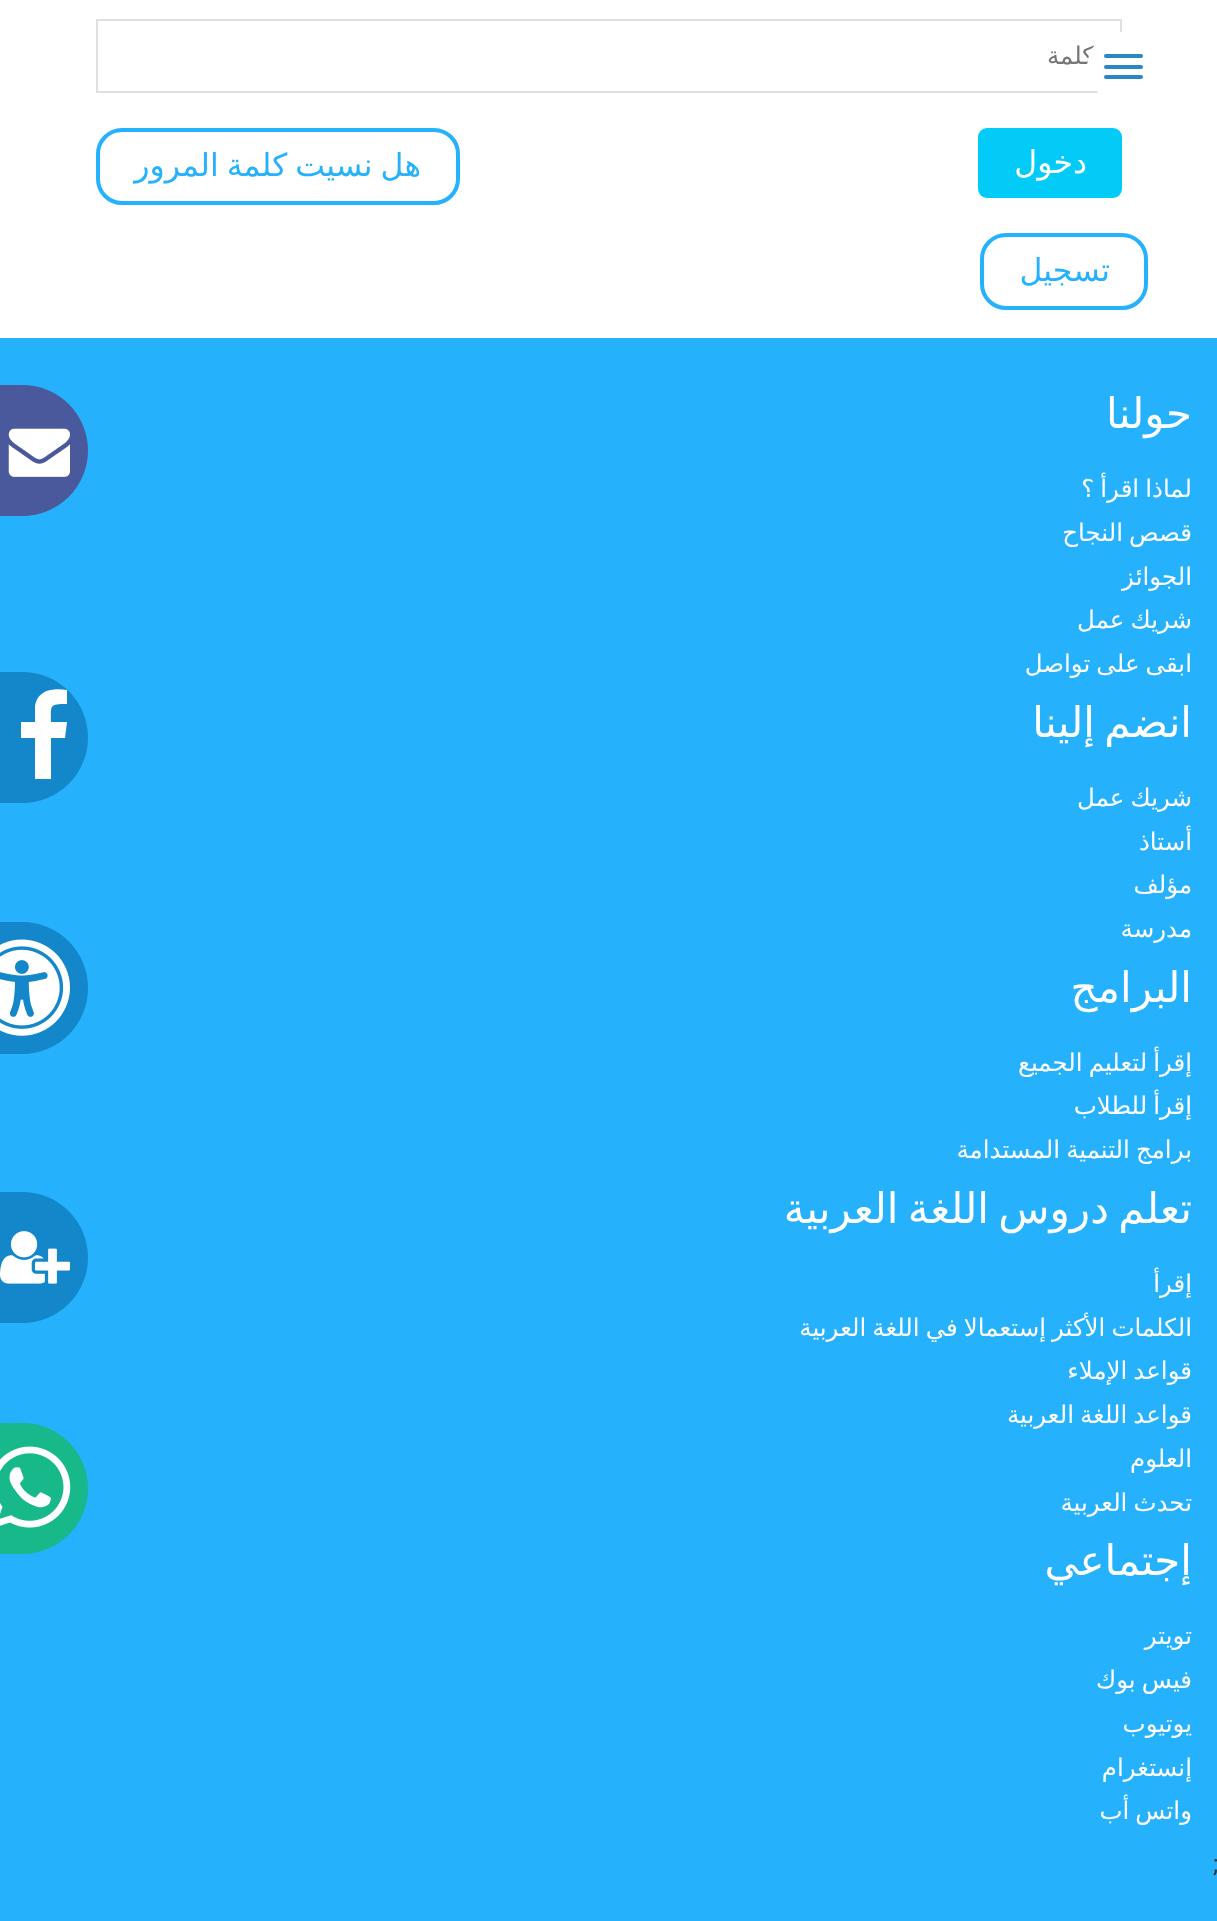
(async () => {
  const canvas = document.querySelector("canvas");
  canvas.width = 1217;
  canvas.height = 1921;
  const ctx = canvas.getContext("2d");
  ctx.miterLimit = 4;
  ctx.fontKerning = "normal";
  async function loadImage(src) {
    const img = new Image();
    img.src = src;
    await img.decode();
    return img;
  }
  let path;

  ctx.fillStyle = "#ffffff";
  ctx.fillRect(0, 0, 1217, 1921);
  ctx.strokeStyle = "#e0e0e0";
  ctx.lineWidth = 2;
  ctx.strokeRect(97, 20, 1024, 72);
  ctx.fillStyle = "#02cbf7";
  ctx.beginPath();
  ctx.roundRect(978, 128, 144, 70, 9);
  ctx.fill();
  ctx.beginPath();
  ctx.roundRect(98, 130, 360, 73, 24);
  ctx.strokeStyle = "#26b1fc";
  ctx.lineWidth = 4;
  ctx.stroke();
  ctx.beginPath();
  ctx.roundRect(982, 235, 164, 73, 24);
  ctx.stroke();
  ctx.fillStyle = "#26b1fc";
  ctx.fillRect(0, 338, 1217, 1583);
  ctx.fillStyle = "#4a599b";
  ctx.beginPath();
  ctx.roundRect(0, 385, 88, 131, [0, 65.5, 65.5, 0]);
  ctx.fill();
  ctx.drawImage(await loadImage("img/1.png"), 8, 428, 62, 49);
  ctx.fillStyle = "#1387ca";
  ctx.beginPath();
  ctx.roundRect(0, 672, 88, 131, [0, 65.5, 65.5, 0]);
  ctx.fill();
  ctx.fillStyle = "#ffffff";
  path = new Path2D("M67 690V704C49 704 51 705 51 722H67L65 738H51V779H35V738H21V722H35V706C38 689 54 688 67 690Z");
  ctx.fill(path);
  ctx.fillStyle = "#1387ca";
  ctx.beginPath();
  ctx.roundRect(0, 922, 88, 132, [0, 66, 66, 0]);
  ctx.fill();
  ctx.drawImage(await loadImage("img/2.png"), 0, 939, 70, 97);
  ctx.beginPath();
  ctx.roundRect(0, 1192, 88, 131, [0, 65.5, 65.5, 0]);
  ctx.fill();
  ctx.drawImage(await loadImage("img/3.png"), 0, 1231, 70, 53);
  ctx.fillStyle = "#17b88a";
  ctx.beginPath();
  ctx.roundRect(0, 1423, 88, 131, [0, 65.5, 65.5, 0]);
  ctx.fill();
  ctx.drawImage(await loadImage("img/4.png"), 0, 1446, 71, 82);
  ctx.direction = "rtl";
  ctx.font = "24.5px DejaVu Sans";
  ctx.fillStyle = "#757575";
  ctx.fillText("كلمة", 1094, 64);
  ctx.fillStyle = "#ffffff";
  ctx.beginPath();
  ctx.arc(1122, 67, 35, 0, Math.PI * 2);
  ctx.fill();
  ctx.fillStyle = "#2987c5";
  ctx.beginPath();
  ctx.roundRect(1104, 75, 39, 4, 2);
  ctx.fill();
  ctx.beginPath();
  ctx.roundRect(1104, 65, 39, 4, 2);
  ctx.fill();
  ctx.beginPath();
  ctx.roundRect(1104, 54, 39, 4, 2);
  ctx.fill();
  ctx.font = "31.5px DejaVu Sans";
  ctx.fillStyle = "#ffffff";
  ctx.fillText("دخول", 1087, 173);
  ctx.wordSpacing = "-2px";
  ctx.fillStyle = "#26b1fc";
  ctx.fillText("هل نسيت كلمة المرور", 421, 176);
  ctx.wordSpacing = "0px";
  ctx.fillText("تسجيل", 1110, 281);
  ctx.font = "42px DejaVu Sans";
  ctx.fillStyle = "#ffffff";
  ctx.fillText("حولنا", 1192, 428);
  ctx.wordSpacing = "-1.75px";
  ctx.font = "24.5px DejaVu Sans";
  ctx.fillText("لماذا اقرأ ؟", 1192, 497);
  ctx.fillText("قصص النجاح", 1192, 541);
  ctx.wordSpacing = "0px";
  ctx.fillText("الجوائز", 1192, 585);
  ctx.wordSpacing = "-1.75px";
  ctx.fillText("شريك عمل", 1192, 628);
  ctx.fillText("ابقى على تواصل", 1192, 672);
  ctx.wordSpacing = "-4px";
  ctx.font = "42px DejaVu Sans";
  ctx.fillText("انضم إلينا", 1192, 737);
  ctx.wordSpacing = "-1.75px";
  ctx.font = "24.5px DejaVu Sans";
  ctx.fillText("شريك عمل", 1192, 806);
  ctx.wordSpacing = "0px";
  for (const [text, x, y] of [
    ["أستاذ", 1192, 850],
    ["مؤلف", 1192, 893],
    ["مدرسة", 1192, 937],
  ]) {
    ctx.fillText(text, x, y);
  }
  ctx.font = "42px DejaVu Sans";
  ctx.fillText("البرامج", 1192, 1002);
  ctx.wordSpacing = "-1.75px";
  ctx.font = "24.5px DejaVu Sans";
  for (const [text, x, y] of [
    ["إقرأ لتعليم الجميع", 1192, 1071],
    ["إقرأ للطلاب", 1192, 1114],
    ["برامج التنمية المستدامة", 1192, 1158],
  ]) {
    ctx.fillText(text, x, y);
  }
  ctx.wordSpacing = "-4px";
  ctx.font = "42px DejaVu Sans";
  ctx.fillText("تعلم دروس اللغة العربية", 1192, 1223);
  ctx.wordSpacing = "0px";
  ctx.font = "24.5px DejaVu Sans";
  ctx.fillText("إقرأ", 1192, 1292);
  ctx.wordSpacing = "-1.75px";
  for (const [text, x, y] of [
    ["الكلمات الأكثر إستعمالا في اللغة العربية", 1192, 1336],
    ["قواعد الإملاء", 1192, 1379],
    ["قواعد اللغة العربية", 1192, 1423],
  ]) {
    ctx.fillText(text, x, y);
  }
  ctx.wordSpacing = "0px";
  ctx.fillText("العلوم", 1192, 1467);
  ctx.wordSpacing = "-1.75px";
  ctx.fillText("تحدث العربية", 1192, 1511);
  ctx.wordSpacing = "0px";
  ctx.font = "42px DejaVu Sans";
  ctx.fillText("إجتماعي", 1192, 1575);
  ctx.font = "24.5px DejaVu Sans";
  ctx.fillText("تويتر", 1192, 1644);
  ctx.wordSpacing = "-1.75px";
  ctx.fillText("فيس بوك", 1192, 1688);
  ctx.wordSpacing = "0px";
  ctx.fillText("يوتيوب", 1192, 1732);
  ctx.fillText("إنستغرام", 1192, 1776);
  ctx.wordSpacing = "-1.75px";
  ctx.fillText("واتس أب", 1192, 1819);
  ctx.wordSpacing = "0px";
  ctx.direction = "ltr";
  ctx.font = "24.5px Roboto";
  ctx.fillStyle = "#333333";
  ctx.fillText(";", 1213, 1872);
})();
